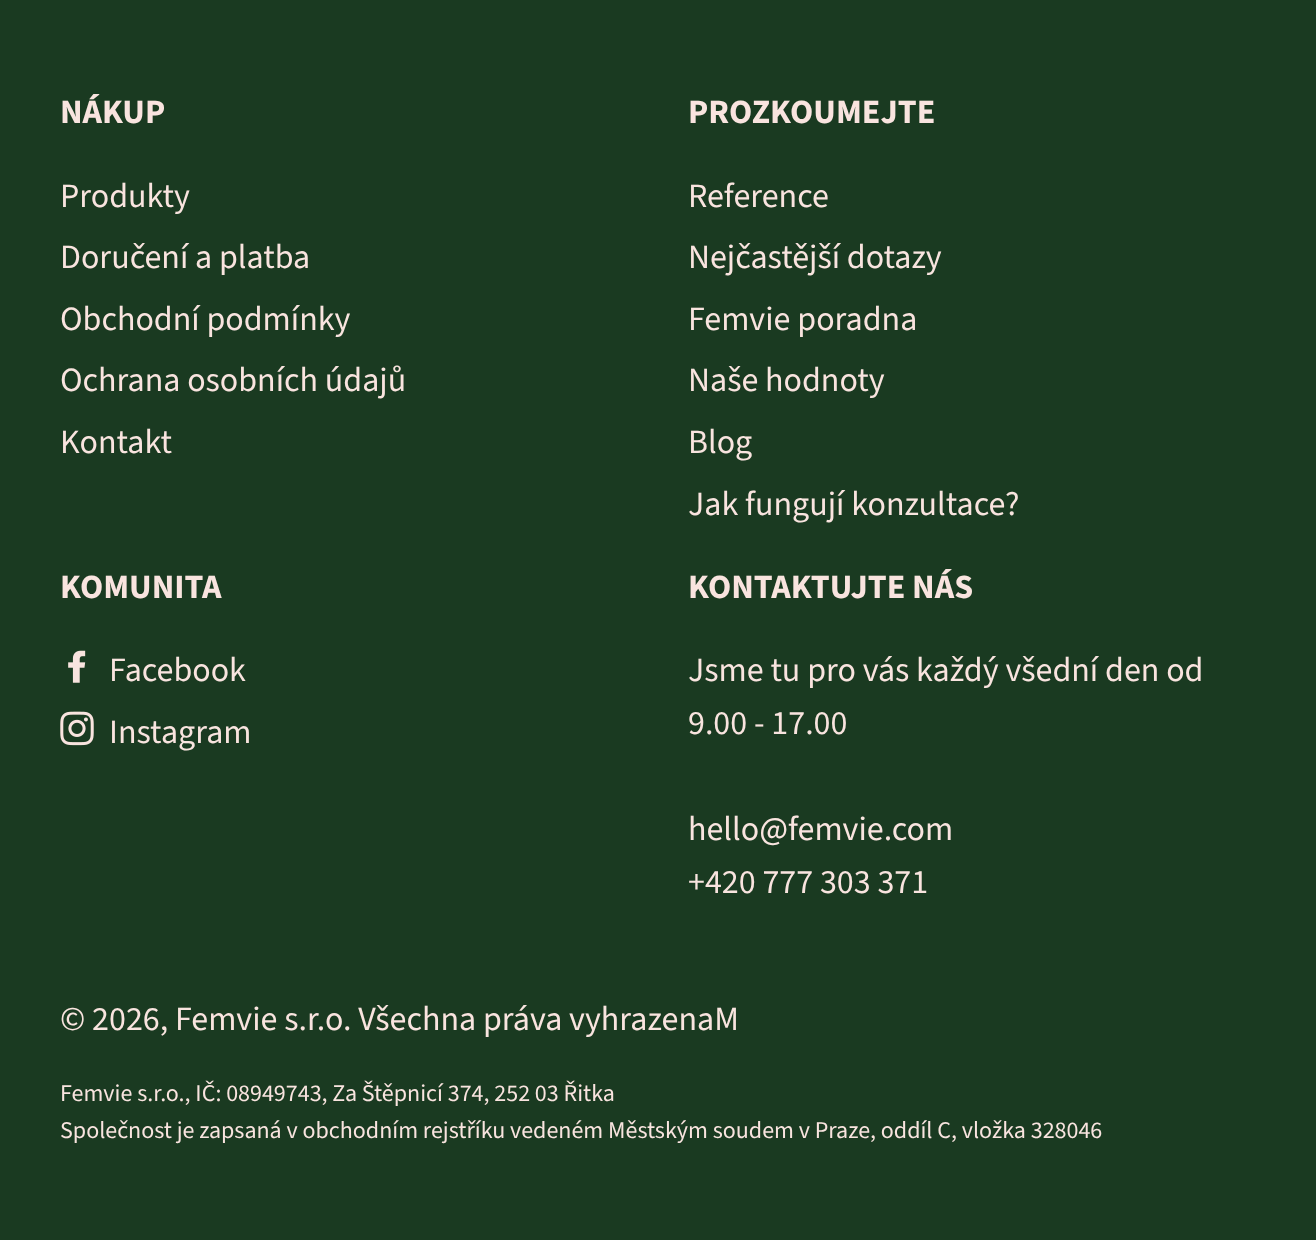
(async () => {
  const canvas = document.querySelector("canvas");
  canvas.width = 1316;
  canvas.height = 1240;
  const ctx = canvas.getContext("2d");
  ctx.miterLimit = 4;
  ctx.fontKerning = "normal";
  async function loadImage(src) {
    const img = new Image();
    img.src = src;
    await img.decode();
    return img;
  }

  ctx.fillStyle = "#1a3a21";
  ctx.fillRect(0, 0, 1316, 1240);
  ctx.drawImage(await loadImage("img/1.png"), 68, 650, 18, 33);
  ctx.drawImage(await loadImage("img/2.png"), 60, 711, 34, 35);
  ctx.font = "bold 34px Source Sans Pro";
  ctx.fillStyle = "#f9e4df";
  ctx.fillText("NÁKUP", 60, 123);
  ctx.font = "34px Source Sans Pro";
  for (const [text, x, y] of [
    ["Produkty", 60, 207],
    ["Doručení a platba", 60, 268],
    ["Obchodní podmínky", 60, 330],
    ["Ochrana osobních údajů", 60, 391],
    ["Kontakt", 60, 453],
  ]) {
    ctx.fillText(text, x, y);
  }
  ctx.font = "bold 34px Source Sans Pro";
  ctx.fillText("PROZKOUMEJTE", 688, 123);
  ctx.font = "34px Source Sans Pro";
  for (const [text, x, y] of [
    ["Reference", 688, 207],
    ["Nejčastější dotazy", 688, 268],
    ["Femvie poradna", 688, 330],
    ["Naše hodnoty", 688, 391],
    ["Blog", 688, 453],
    ["Jak fungují konzultace?", 688, 515],
  ]) {
    ctx.fillText(text, x, y);
  }
  ctx.font = "bold 34px Source Sans Pro";
  ctx.fillText("KOMUNITA", 60, 598);
  ctx.font = "34px Source Sans Pro";
  ctx.fillText("Facebook", 109, 681);
  ctx.fillText("Instagram", 109, 743);
  ctx.font = "bold 34px Source Sans Pro";
  ctx.fillText("KONTAKTUJTE NÁS", 688, 598);
  ctx.font = "34px Source Sans Pro";
  for (const [text, x, y] of [
    ["Jsme tu pro vás každý všední den od", 688, 681],
    ["9.00 - 17.00", 688, 734],
    ["hello@femvie.com", 688, 840],
    ["+420 777 303 371", 688, 893],
    ["© 2026, Femvie s.r.o. Všechna práva vyhrazenaM", 60, 1030],
  ]) {
    ctx.fillText(text, x, y);
  }
  ctx.font = "24px Source Sans Pro";
  ctx.fillText("Femvie s.r.o., IČ: 08949743, Za Štěpnicí 374, 252 03 Řitka", 60, 1101);
  ctx.fillText("Společnost je zapsaná v obchodním rejstříku vedeném Městským soudem v Praze, oddíl C, vložka 328046", 60, 1138);
})();
